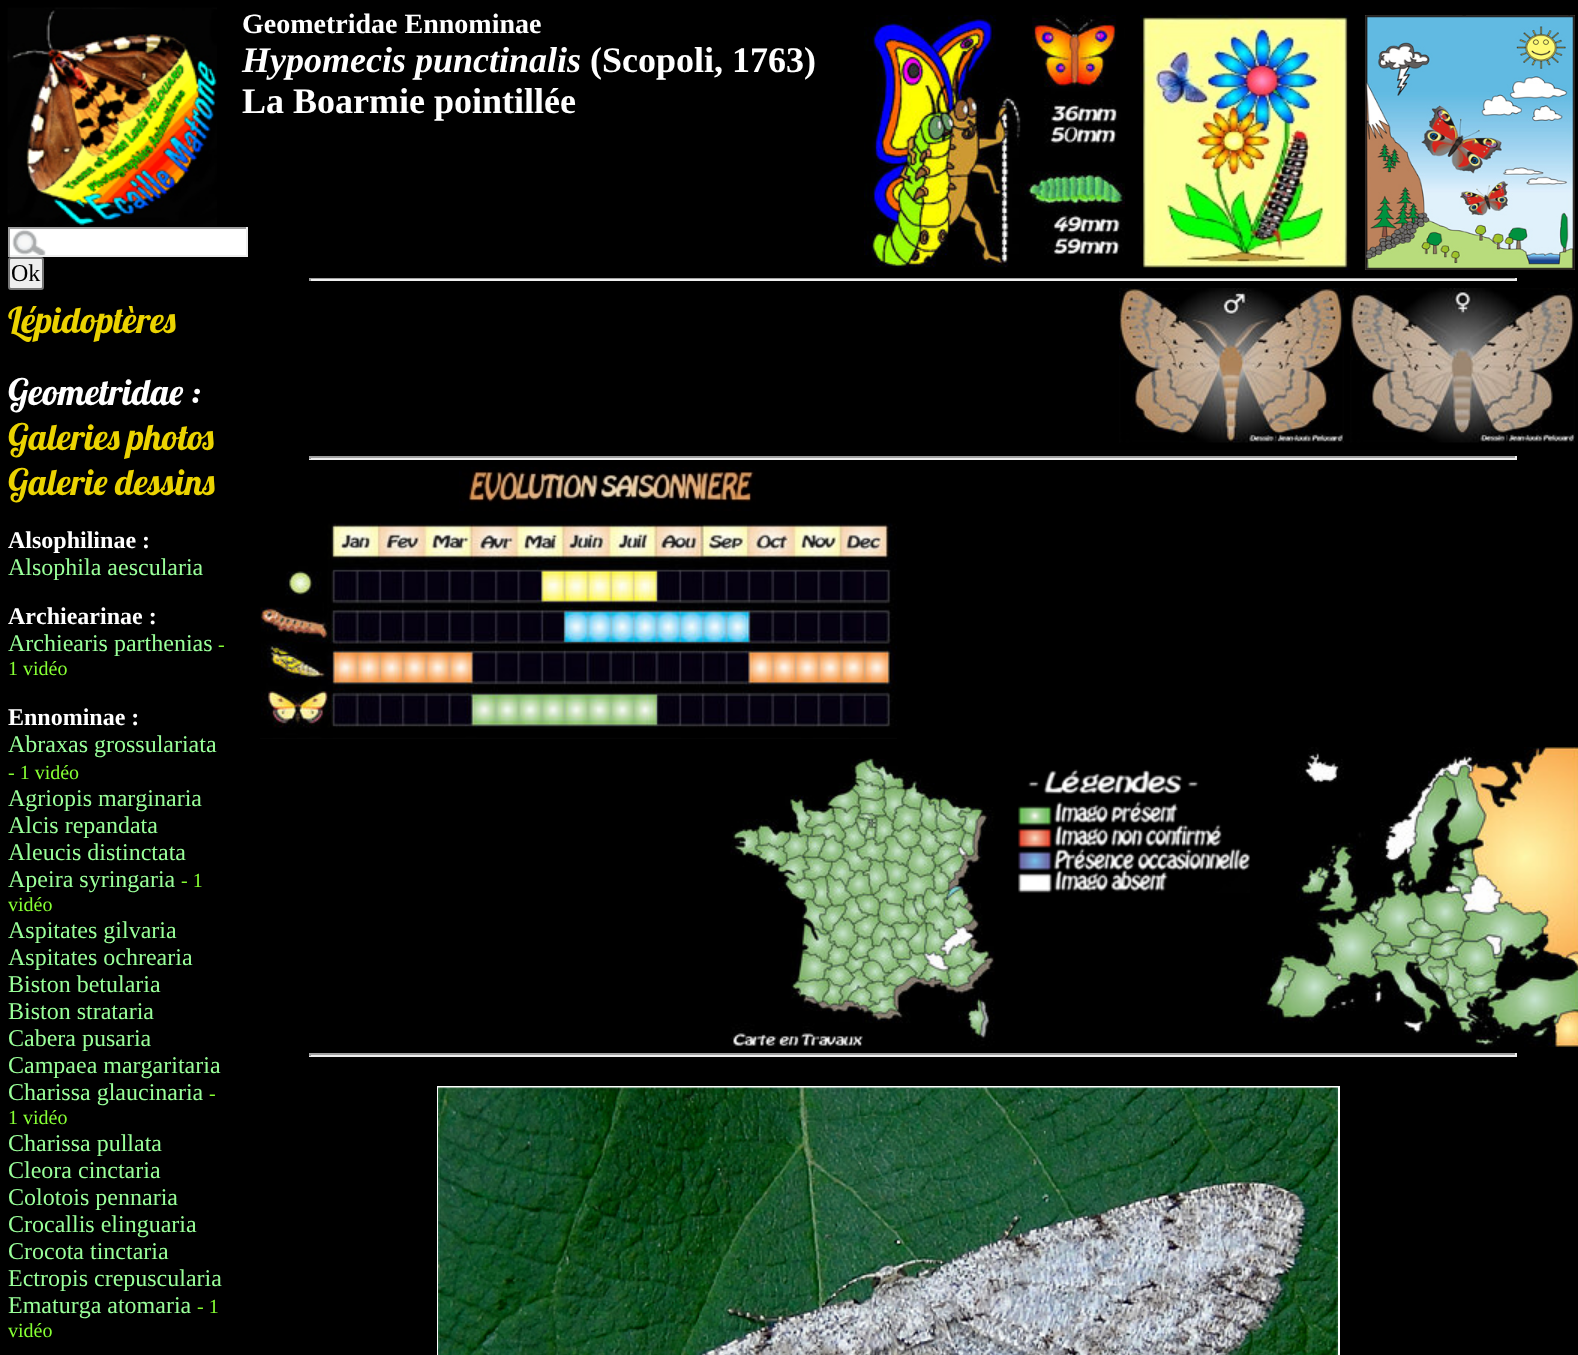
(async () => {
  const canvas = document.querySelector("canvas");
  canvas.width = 1578;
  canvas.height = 1355;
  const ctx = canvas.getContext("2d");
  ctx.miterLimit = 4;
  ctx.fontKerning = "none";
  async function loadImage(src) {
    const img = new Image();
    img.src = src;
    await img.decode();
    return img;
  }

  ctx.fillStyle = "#000000";
  ctx.fillRect(0, 0, 1578, 1355);
  ctx.drawImage(await loadImage("img/1.png"), 864, 15, 261, 253);
  ctx.drawImage(await loadImage("img/2.png"), 1140, 15, 210, 255);
  ctx.drawImage(await loadImage("img/3.png"), 1365, 15, 210, 255);
  for (const [x, y, w, h, color] of [
    [309, 278, 1208, 1, "#9f9f9f"],
    [1515, 278, 2, 3, "#eeeeee"],
    [309, 279, 1208, 2, "#eeeeee"],
    [309, 278, 2, 3, "#9f9f9f"],
  ]) {
    ctx.fillStyle = color;
    ctx.fillRect(x, y, w, h);
  }
  ctx.drawImage(await loadImage("img/4.png"), 1119, 288, 225, 155);
  ctx.drawImage(await loadImage("img/5.png"), 1350, 288, 225, 155);
  for (const [x, y, w, h, color] of [
    [309, 456, 1208, 2, "#9f9f9f"],
    [1515, 456, 2, 3, "#eeeeee"],
    [309, 458, 1208, 2, "#eeeeee"],
    [309, 456, 2, 3, "#9f9f9f"],
  ]) {
    ctx.fillStyle = color;
    ctx.fillRect(x, y, w, h);
  }
  ctx.drawImage(await loadImage("img/6.png"), 459, 467, 297, 44);
  ctx.drawImage(await loadImage("img/7.png"), 260, 523, 637, 216);
  ctx.drawImage(await loadImage("img/8.png"), 730, 758, 265, 289);
  ctx.drawImage(await loadImage("img/9.png"), 1018, 769, 232, 124);
  ctx.drawImage(await loadImage("img/10.png"), 1260, 747, 318, 300);
  for (const [x, y, w, h, color] of [
    [309, 1053, 1208, 2, "#9f9f9f"],
    [1515, 1053, 2, 3, "#eeeeee"],
    [309, 1055, 1208, 2, "#eeeeee"],
    [309, 1053, 2, 3, "#9f9f9f"],
  ]) {
    ctx.fillStyle = color;
    ctx.fillRect(x, y, w, h);
  }
  ctx.strokeStyle = "#ffffff";
  ctx.lineWidth = 2;
  ctx.strokeRect(438, 1087, 901, 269);
  ctx.drawImage(await loadImage("img/11.png"), 438, 1087, 900, 268);
  ctx.drawImage(await loadImage("img/12.png"), 7, 7, 210, 219);
  ctx.fillStyle = "#ffffff";
  ctx.fillRect(10, 229, 236, 26);
  ctx.drawImage(await loadImage("img/13.png"), 12, 229, 34, 26);
  for (const [x, y, w, h, color] of [
    [8, 227, 240, 2, "#9f9f9f"],
    [246, 227, 2, 30, "#eeeeee"],
    [8, 255, 240, 2, "#eeeeee"],
    [8, 227, 2, 30, "#9f9f9f"],
  ]) {
    ctx.fillStyle = color;
    ctx.fillRect(x, y, w, h);
  }
  ctx.fillStyle = "#efefef";
  ctx.beginPath();
  ctx.roundRect(9, 258, 34, 31, 2);
  ctx.fill();
  ctx.strokeStyle = "#767676";
  ctx.stroke();
  ctx.font = "bold 28px Liberation Serif";
  ctx.fillStyle = "#ffffff";
  ctx.fillText("Geometridae Ennominae", 242, 33);
  ctx.font = "italic bold 36px Liberation Serif";
  ctx.fillText("Hypomecis punctinalis", 242, 72);
  ctx.font = "bold 36px Liberation Serif";
  ctx.fillText("(Scopoli, 1763)", 590, 72);
  ctx.fillText("La Boarmie pointillée", 242, 113);
  ctx.font = "24px Liberation Serif";
  ctx.fillStyle = "#000000";
  ctx.fillText("Ok", 11, 281);
  ctx.font = "36px Lobster";
  ctx.fillStyle = "#ebd301";
  ctx.fillText("Lépidoptères", 8, 333);
  ctx.fillStyle = "#ffffff";
  ctx.fillText("Geometridae :", 8, 405);
  ctx.fillStyle = "#ebd301";
  ctx.fillText("Galeries photos", 8, 450);
  ctx.fillText("Galerie dessins", 8, 495);
  ctx.font = "bold 24px Liberation Serif";
  ctx.fillStyle = "#ffffff";
  ctx.fillText("Alsophilinae :", 8, 548);
  ctx.font = "24px Liberation Serif";
  ctx.fillStyle = "#99ff99";
  ctx.fillText("Alsophila aescularia", 8, 575);
  ctx.font = "bold 24px Liberation Serif";
  ctx.fillStyle = "#ffffff";
  ctx.fillText("Archiearinae :", 8, 624);
  ctx.font = "24px Liberation Serif";
  ctx.fillStyle = "#99ff99";
  ctx.fillText("Archiearis parthenias", 8, 651);
  ctx.font = "20px Liberation Serif";
  ctx.fillStyle = "#86ff33";
  ctx.fillText("-", 218, 651);
  ctx.fillText("1 vidéo", 8, 675);
  ctx.font = "bold 24px Liberation Serif";
  ctx.fillStyle = "#ffffff";
  ctx.fillText("Ennominae :", 8, 725);
  ctx.font = "24px Liberation Serif";
  ctx.fillStyle = "#99ff99";
  ctx.fillText("Abraxas grossulariata", 8, 752);
  ctx.font = "20px Liberation Serif";
  ctx.fillStyle = "#86ff33";
  ctx.fillText("- 1 vidéo", 8, 779);
  ctx.font = "24px Liberation Serif";
  ctx.fillStyle = "#99ff99";
  for (const [text, x, y] of [
    ["Agriopis marginaria", 8, 806],
    ["Alcis repandata", 8, 833],
    ["Aleucis distinctata", 8, 860],
    ["Apeira syringaria", 8, 887],
  ]) {
    ctx.fillText(text, x, y);
  }
  ctx.font = "20px Liberation Serif";
  ctx.fillStyle = "#86ff33";
  ctx.fillText("- 1", 181, 887);
  ctx.fillText("vidéo", 8, 911);
  ctx.font = "24px Liberation Serif";
  ctx.fillStyle = "#99ff99";
  for (const [text, x, y] of [
    ["Aspitates gilvaria", 8, 938],
    ["Aspitates ochrearia", 8, 965],
    ["Biston betularia", 8, 992],
    ["Biston strataria", 8, 1019],
    ["Cabera pusaria", 8, 1046],
    ["Campaea margaritaria", 8, 1073],
    ["Charissa glaucinaria", 8, 1100],
  ]) {
    ctx.fillText(text, x, y);
  }
  ctx.font = "20px Liberation Serif";
  ctx.fillStyle = "#86ff33";
  ctx.fillText("-", 209, 1100);
  ctx.fillText("1 vidéo", 8, 1124);
  ctx.font = "24px Liberation Serif";
  ctx.fillStyle = "#99ff99";
  for (const [text, x, y] of [
    ["Charissa pullata", 8, 1151],
    ["Cleora cinctaria", 8, 1178],
    ["Colotois pennaria", 8, 1205],
    ["Crocallis elinguaria", 8, 1232],
    ["Crocota tinctaria", 8, 1259],
    ["Ectropis crepuscularia", 8, 1286],
    ["Ematurga atomaria", 8, 1313],
  ]) {
    ctx.fillText(text, x, y);
  }
  ctx.font = "20px Liberation Serif";
  ctx.fillStyle = "#86ff33";
  ctx.fillText("- 1", 197, 1313);
  ctx.fillText("vidéo", 8, 1337);
})();
